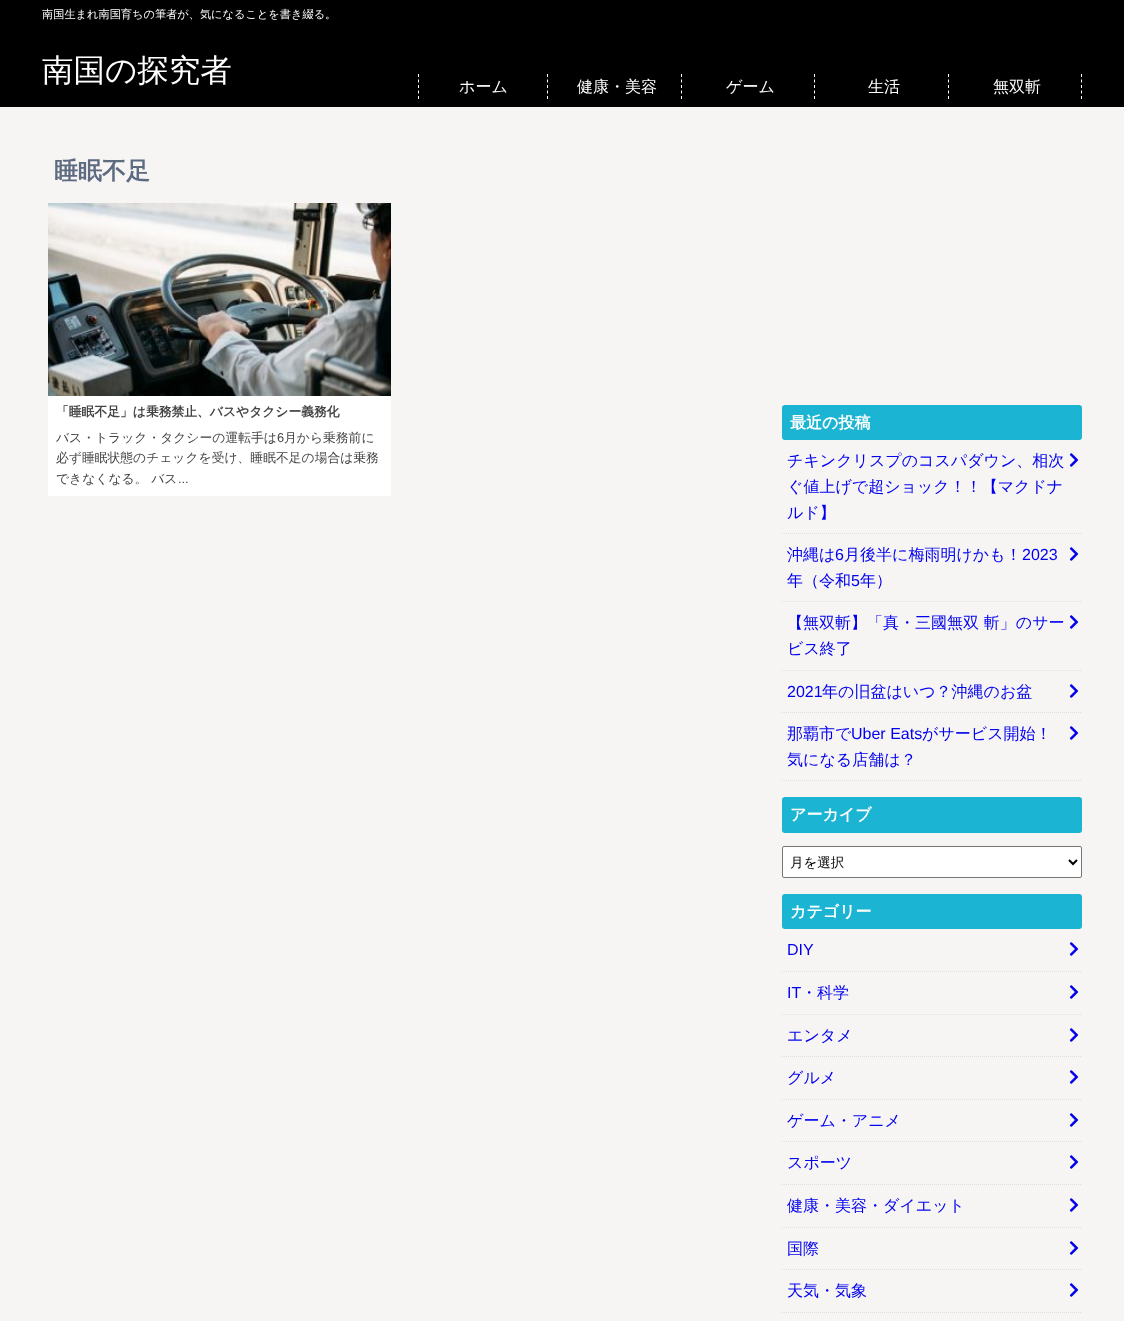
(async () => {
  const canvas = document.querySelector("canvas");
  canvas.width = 1124;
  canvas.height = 1321;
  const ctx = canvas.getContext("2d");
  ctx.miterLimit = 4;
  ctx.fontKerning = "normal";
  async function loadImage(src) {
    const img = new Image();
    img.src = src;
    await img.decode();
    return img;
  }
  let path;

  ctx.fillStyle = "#f7f4f4";
  ctx.fillRect(0, 0, 1124, 1321);
  ctx.fillStyle = "#000000";
  ctx.fillRect(0, 0, 1124, 107);
  path = new Path2D("M547.5 74V99");
  ctx.strokeStyle = "#ffffff";
  ctx.setLineDash([3, 2.5]);
  ctx.stroke(path);
  path = new Path2D("M418.5 74V99");
  ctx.stroke(path);
  path = new Path2D("M681.5 74V99");
  ctx.stroke(path);
  path = new Path2D("M814.5 74V99");
  ctx.stroke(path);
  path = new Path2D("M948.5 74V99");
  ctx.stroke(path);
  path = new Path2D("M1081.5 74V99");
  ctx.stroke(path);
  ctx.fillStyle = "#ffffff";
  ctx.fillRect(48, 396, 343, 100);
  ctx.drawImage(await loadImage("img/1.png"), 48, 203, 343, 193);
  ctx.fillStyle = "#1bb4d3";
  ctx.beginPath();
  ctx.roundRect(782, 405, 300, 35, 3);
  ctx.fill();
  path = new Path2D("M782 533.5H1082");
  ctx.strokeStyle = "#dfdcdc";
  ctx.setLineDash([1, 1]);
  ctx.stroke(path);
  ctx.drawImage(await loadImage("img/2.png"), 1069, 453, 10, 14);
  path = new Path2D("M782 601.5H1082");
  ctx.stroke(path);
  ctx.drawImage(await loadImage("img/2.png"), 1069, 547, 10, 14);
  path = new Path2D("M782 670.5H1082");
  ctx.stroke(path);
  ctx.drawImage(await loadImage("img/2.png"), 1069, 615, 10, 14);
  path = new Path2D("M782 712.5H1082");
  ctx.stroke(path);
  ctx.drawImage(await loadImage("img/2.png"), 1069, 684, 10, 14);
  path = new Path2D("M782 780.5H1082");
  ctx.stroke(path);
  ctx.drawImage(await loadImage("img/2.png"), 1069, 726, 10, 14);
  ctx.beginPath();
  ctx.roundRect(782, 797, 300, 36, 3);
  ctx.fill();
  ctx.fillStyle = "#ffffff";
  ctx.beginPath();
  ctx.roundRect(782.5, 846.5, 299, 31, 1.5);
  ctx.fill();
  ctx.strokeStyle = "#767676";
  ctx.setLineDash([]);
  ctx.stroke();
  path = new Path2D("M1069 860L1073 864L1077 860");
  ctx.strokeStyle = "#000000";
  ctx.lineWidth = 2;
  ctx.stroke(path);
  ctx.fillStyle = "#1bb4d3";
  ctx.beginPath();
  ctx.roundRect(782, 894, 300, 35, 3);
  ctx.fill();
  path = new Path2D("M782 971.5H1082");
  ctx.strokeStyle = "#dfdcdc";
  ctx.lineWidth = 1;
  ctx.setLineDash([1, 1]);
  ctx.stroke(path);
  ctx.drawImage(await loadImage("img/2.png"), 1069, 942, 10, 14);
  path = new Path2D("M782 1014.5H1082");
  ctx.stroke(path);
  ctx.drawImage(await loadImage("img/2.png"), 1069, 985, 10, 14);
  path = new Path2D("M782 1056.5H1082");
  ctx.stroke(path);
  ctx.drawImage(await loadImage("img/2.png"), 1069, 1028, 10, 14);
  path = new Path2D("M782 1099.5H1082");
  ctx.stroke(path);
  ctx.drawImage(await loadImage("img/2.png"), 1069, 1070, 10, 14);
  path = new Path2D("M782 1141.5H1082");
  ctx.stroke(path);
  ctx.drawImage(await loadImage("img/2.png"), 1069, 1113, 10, 14);
  path = new Path2D("M782 1184.5H1082");
  ctx.stroke(path);
  ctx.drawImage(await loadImage("img/2.png"), 1069, 1155, 10, 14);
  path = new Path2D("M782 1227.5H1082");
  ctx.stroke(path);
  ctx.drawImage(await loadImage("img/2.png"), 1069, 1198, 10, 14);
  path = new Path2D("M782 1269.5H1082");
  ctx.stroke(path);
  ctx.drawImage(await loadImage("img/2.png"), 1069, 1241, 10, 14);
  path = new Path2D("M782 1312.5H1082");
  ctx.stroke(path);
  ctx.drawImage(await loadImage("img/2.png"), 1069, 1283, 10, 14);
  ctx.font = "500 11.2px WenQuanYi Zen Hei";
  ctx.fillStyle = "#ffffff";
  ctx.fillText("南国生まれ南国育ちの筆者が、気になることを書き綴る。", 42, 18);
  ctx.font = "500 31.5px WenQuanYi Zen Hei";
  ctx.fillText("南国の探究者", 42, 81);
  ctx.font = "500 16px WenQuanYi Zen Hei";
  for (const [text, x, y] of [
    ["ホーム", 459, 92],
    ["健康・美容", 577, 92],
    ["ゲーム", 726, 92],
    ["生活", 868, 92],
    ["無双斬", 993, 92],
  ]) {
    ctx.fillText(text, x, y);
  }
  ctx.font = "bold 24px WenQuanYi Zen Hei";
  ctx.fillStyle = "#5c6b80";
  ctx.fillText("睡眠不足", 54, 179);
  ctx.font = "bold 12.8px WenQuanYi Zen Hei";
  ctx.fillStyle = "#444444";
  ctx.fillText("「睡眠不足」は乗務禁止、バスやタクシー義務化", 56, 416);
  ctx.font = "500 12.8px WenQuanYi Zen Hei";
  ctx.fillText("バス・トラック・タクシーの運転手は", 56, 442);
  ctx.font = "12.8px Liberation Sans";
  ctx.fillText("6", 277, 442);
  ctx.font = "500 12.8px WenQuanYi Zen Hei";
  for (const [text, x, y] of [
    ["月から乗務前に", 284, 442],
    ["必ず睡眠状態のチェックを受け、睡眠不足の場合は乗務", 56, 462],
    ["できなくなる。 バス", 56, 483],
  ]) {
    ctx.fillText(text, x, y);
  }
  ctx.font = "12.8px Liberation Sans";
  ctx.fillText("...", 178, 483);
  ctx.font = "bold 16px WenQuanYi Zen Hei";
  ctx.fillStyle = "#ffffff";
  ctx.fillText("最近の投稿", 790, 428);
  ctx.font = "500 16px WenQuanYi Zen Hei";
  ctx.fillStyle = "#0000ee";
  for (const [text, x, y] of [
    ["チキンクリスプのコスパダウン、相次", 787, 466],
    ["ぐ値上げで超ショック！！【マクドナ", 787, 492],
    ["ルド】", 787, 518],
    ["沖縄は", 787, 560],
  ]) {
    ctx.fillText(text, x, y);
  }
  ctx.font = "16px Liberation Sans";
  ctx.fillText("6", 835, 560);
  ctx.font = "500 16px WenQuanYi Zen Hei";
  ctx.fillText("月後半に梅雨明けかも！", 844, 560);
  ctx.font = "16px Liberation Sans";
  ctx.fillText("2023", 1022, 560);
  ctx.font = "500 16px WenQuanYi Zen Hei";
  ctx.fillText("年（令和", 787, 586);
  ctx.font = "16px Liberation Sans";
  ctx.fillText("5", 851, 586);
  ctx.font = "500 16px WenQuanYi Zen Hei";
  for (const [text, x, y] of [
    ["年）", 860, 586],
    ["【無双斬】「真・三國無双 斬」のサー", 787, 628],
    ["ビス終了", 787, 654],
  ]) {
    ctx.fillText(text, x, y);
  }
  ctx.font = "16px Liberation Sans";
  ctx.fillText("2021", 787, 697);
  ctx.font = "500 16px WenQuanYi Zen Hei";
  ctx.fillText("年の旧盆はいつ？沖縄のお盆", 822, 697);
  ctx.fillText("那覇市で", 787, 739);
  ctx.font = "16px Liberation Sans";
  ctx.fillText("Uber Eats", 851, 739);
  ctx.font = "500 16px WenQuanYi Zen Hei";
  ctx.fillText("がサービス開始！", 922, 739);
  ctx.fillText("気になる店舗は？", 787, 765);
  ctx.font = "bold 16px WenQuanYi Zen Hei";
  ctx.fillStyle = "#ffffff";
  ctx.fillText("アーカイブ", 790, 820);
  ctx.font = "500 13.5px WenQuanYi Zen Hei";
  ctx.fillStyle = "#000000";
  ctx.fillText("月を選択", 790, 867);
  ctx.font = "bold 16px WenQuanYi Zen Hei";
  ctx.fillStyle = "#ffffff";
  ctx.fillText("カテゴリー", 790, 917);
  ctx.font = "16px Liberation Sans";
  ctx.fillStyle = "#0000ee";
  ctx.fillText("DIY", 787, 955);
  ctx.fillText("IT", 787, 998);
  ctx.font = "500 16px WenQuanYi Zen Hei";
  for (const [text, x, y] of [
    ["・科学", 801, 998],
    ["エンタメ", 787, 1041],
    ["グルメ", 787, 1083],
    ["ゲーム・アニメ", 787, 1126],
    ["スポーツ", 787, 1168],
    ["健康・美容・ダイエット", 787, 1211],
    ["国際", 787, 1254],
    ["天気・気象", 787, 1296],
  ]) {
    ctx.fillText(text, x, y);
  }
})();
